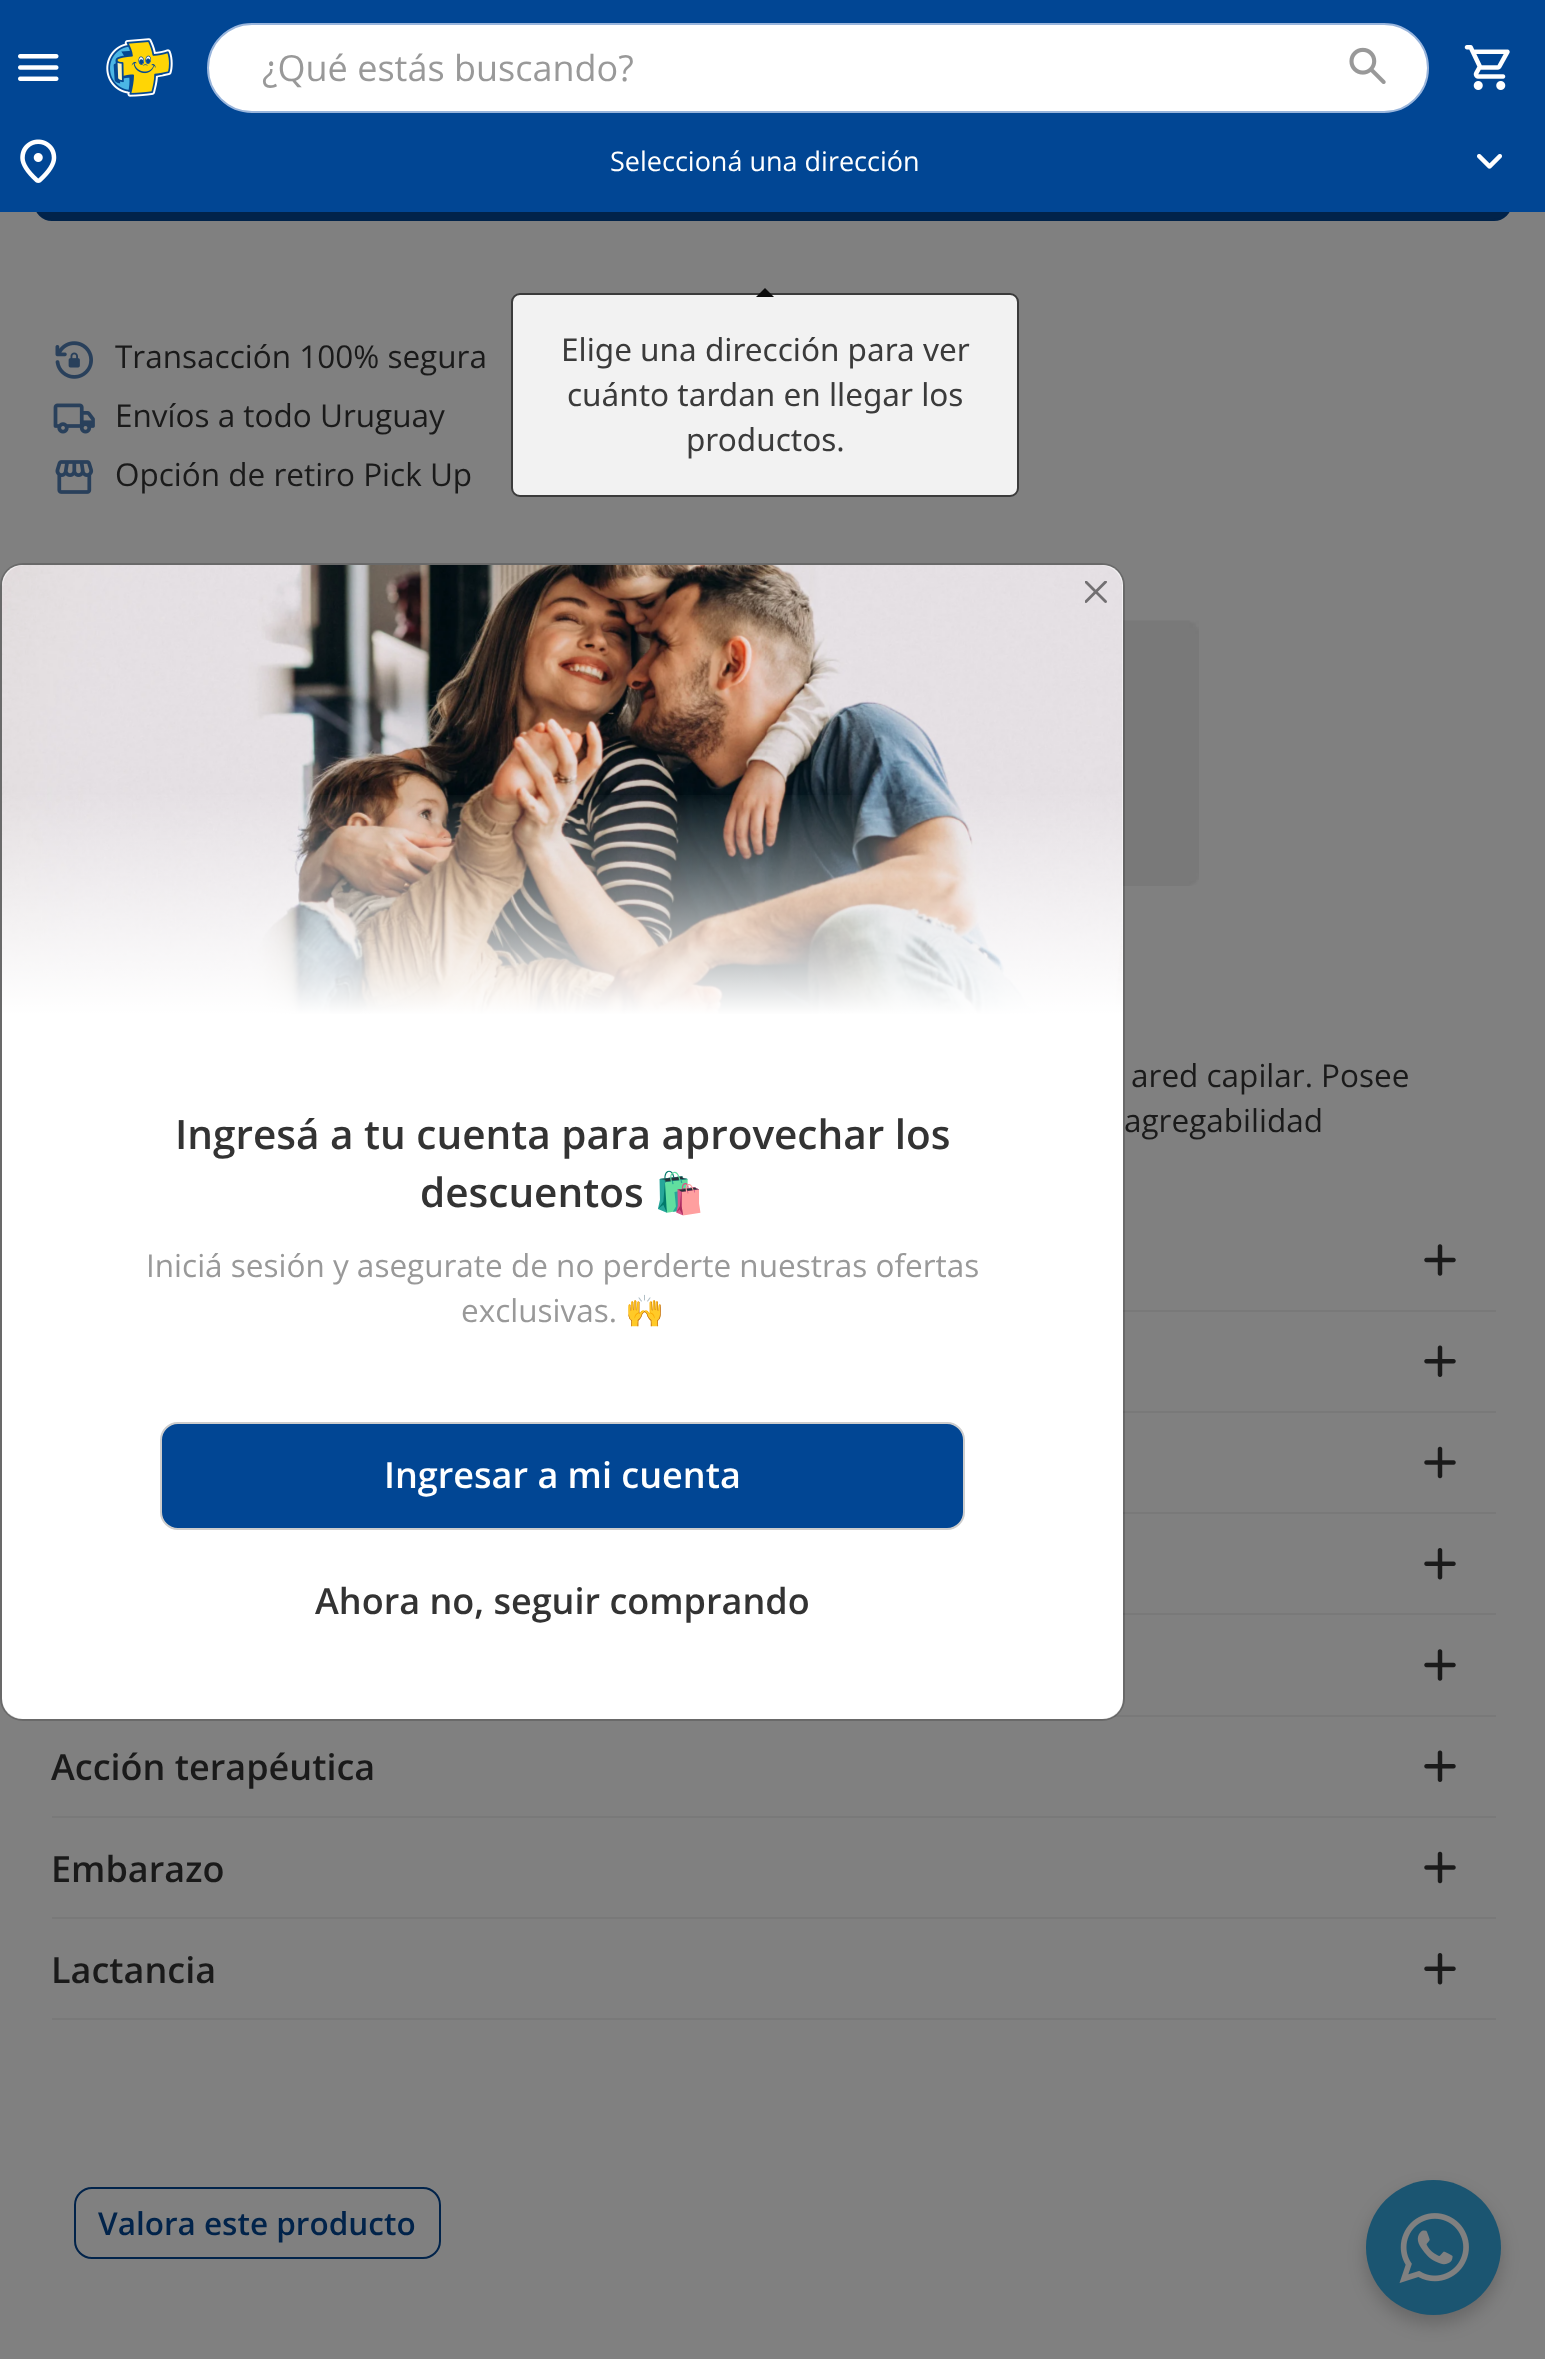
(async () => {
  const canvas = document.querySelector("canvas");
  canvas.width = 1545;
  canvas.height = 2359;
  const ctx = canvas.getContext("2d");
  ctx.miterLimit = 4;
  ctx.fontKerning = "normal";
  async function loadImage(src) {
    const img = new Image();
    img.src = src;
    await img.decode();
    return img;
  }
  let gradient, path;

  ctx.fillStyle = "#808080";
  ctx.fillRect(0, 0, 1545, 2359);
  ctx.fillStyle = "#01234a";
  ctx.beginPath();
  ctx.roundRect(35, 114, 1476, 106, 17);
  ctx.fill();
  ctx.strokeStyle = "#01234a";
  ctx.lineWidth = 2;
  ctx.stroke();
  ctx.fillStyle = "#014694";
  ctx.fillRect(0, 0, 1545, 212);
  ctx.drawImage(await loadImage("img/1.png"), 18, 54, 41, 27);
  ctx.drawImage(await loadImage("img/2.png"), 106, 38, 67, 59);
  ctx.fillStyle = "#ffffff";
  ctx.beginPath();
  ctx.roundRect(208, 24, 1220, 88, 44);
  ctx.fill();
  ctx.strokeStyle = "#99b5dc";
  ctx.stroke();
  ctx.drawImage(await loadImage("img/3.png"), 1349, 47, 37, 37);
  ctx.drawImage(await loadImage("img/4.png"), 1464, 45, 46, 45);
  ctx.drawImage(await loadImage("img/5.png"), 20, 139, 37, 44);
  ctx.drawImage(await loadImage("img/6.png"), 1477, 154, 25, 15);
  ctx.drawImage(await loadImage("img/7.png"), 55, 341, 38, 38);
  ctx.drawImage(await loadImage("img/8.png"), 53, 403, 42, 31);
  ctx.drawImage(await loadImage("img/9.png"), 55, 460, 39, 34);
  ctx.drawImage(await loadImage("img/10.png"), 1123, 620, 76, 266);
  ctx.fillStyle = "#797979";
  ctx.fillRect(1123, 1310, 373, 2);
  ctx.drawImage(await loadImage("img/11.png"), 1424, 1244, 32, 32);
  ctx.fillRect(1123, 1411, 373, 2);
  ctx.drawImage(await loadImage("img/12.png"), 1424, 1345, 32, 32);
  ctx.fillRect(1123, 1512, 373, 2);
  ctx.drawImage(await loadImage("img/13.png"), 1424, 1446, 32, 33);
  ctx.fillRect(1123, 1613, 373, 2);
  ctx.drawImage(await loadImage("img/14.png"), 1424, 1548, 32, 32);
  ctx.fillRect(1111, 1715, 385, 2);
  ctx.drawImage(await loadImage("img/11.png"), 1424, 1649, 32, 32);
  ctx.fillRect(52, 1816, 1444, 2);
  ctx.drawImage(await loadImage("img/12.png"), 1424, 1750, 32, 32);
  ctx.fillRect(52, 1917, 1444, 2);
  ctx.drawImage(await loadImage("img/13.png"), 1424, 1851, 32, 33);
  ctx.fillRect(52, 2018, 1444, 2);
  ctx.drawImage(await loadImage("img/14.png"), 1424, 1953, 32, 32);
  ctx.beginPath();
  ctx.roundRect(75, 2188, 365, 70, 17);
  ctx.strokeStyle = "#01234a";
  ctx.stroke();
  ctx.fillStyle = "#ffffff";
  ctx.beginPath();
  ctx.roundRect(2, 565, 1121, 1154, 20);
  ctx.fill();
  ctx.beginPath();
  ctx.roundRect(1, 564, 1123, 1156, 22);
  ctx.strokeStyle = "rgba(0, 0, 0, 0.18)";
  ctx.stroke();
  ctx.drawImage(await loadImage("img/15.png"), 2, 565, 1121, 449);
  ctx.drawImage(await loadImage("img/16.png"), 1085, 581, 22, 22);
  gradient = ctx.createLinearGradient(563, 790, 563, 1015);
  gradient.addColorStop(0, "rgba(255, 255, 255, 0)");
  gradient.addColorStop(1, "#ffffff");
  ctx.fillStyle = gradient;
  ctx.fillRect(2, 795, 1121, 219);
  ctx.fillStyle = "#014694";
  ctx.beginPath();
  ctx.roundRect(161, 1423, 803, 106, 17);
  ctx.fill();
  ctx.strokeStyle = "#cdcdcd";
  ctx.stroke();
  ctx.fillStyle = "rgba(0, 0, 0, 0.2)";
  ctx.filter = "blur(9px)";
  ctx.beginPath();
  ctx.roundRect(1366, 2189, 135, 135, 67.5);
  ctx.fill();
  ctx.filter = "none";
  ctx.fillStyle = "#1b5571";
  ctx.beginPath();
  ctx.arc(1433.5, 2247.5, 67.5, 0, Math.PI * 2);
  ctx.fill();
  ctx.drawImage(await loadImage("img/17.png"), 1399, 2213, 70, 70);
  ctx.fillStyle = "#f2f2f2";
  ctx.beginPath();
  ctx.roundRect(512, 294, 506, 202, 8);
  ctx.fill();
  ctx.strokeStyle = "#3b3b3b";
  ctx.stroke();
  ctx.fillStyle = "#0d0d0d";
  path = new Path2D("M774 297H756L765 288Z");
  ctx.fill(path);
  ctx.font = "36px Open Sans";
  ctx.fillStyle = "#999999";
  ctx.fillText("¿Qué estás buscando?", 262, 81);
  ctx.font = "27px Open Sans";
  ctx.fillStyle = "#ffffff";
  ctx.fillText("Seleccioná una dirección", 610, 171);
  ctx.font = "31.5px Open Sans";
  ctx.fillStyle = "#1a1a1a";
  for (const [text, x, y] of [
    ["Transacción 100% segura", 115, 368],
    ["Envíos a todo Uruguay", 115, 427],
    ["Opción de retiro Pick Up", 115, 486],
    ["ared capilar. Posee", 1131, 1087],
    ["agregabilidad", 1124, 1132],
  ]) {
    ctx.fillText(text, x, y);
  }
  ctx.font = "600 36px Open Sans";
  for (const [text, x, y] of [
    ["Acción terapéutica", 51, 1780],
    ["Embarazo", 51, 1882],
    ["Lactancia", 51, 1983],
  ]) {
    ctx.fillText(text, x, y);
  }
  ctx.font = "600 31.5px Open Sans";
  ctx.fillStyle = "#01234a";
  ctx.fillText("Valora este producto", 98, 2235);
  ctx.font = "600 40.5px Open Sans";
  ctx.fillStyle = "#333333";
  ctx.fillText("Ingresá a tu cuenta para aprovechar los", 175, 1149);
  ctx.fillText("descuentos", 420, 1207);
  ctx.font = "bold 40.5px Noto Color Emoji";
  ctx.fillText("🛍️", 654, 1207);
  ctx.font = "31.5px Open Sans";
  ctx.fillStyle = "#999999";
  ctx.fillText("Iniciá sesión y asegurate de no perderte nuestras ofertas", 146, 1277);
  ctx.fillText("exclusivas.", 461, 1322);
  ctx.font = "31.5px Noto Color Emoji";
  ctx.fillText("🙌", 625, 1322);
  ctx.font = "600 36px Open Sans";
  ctx.fillStyle = "#ffffff";
  ctx.fillText("Ingresar a mi cuenta", 384, 1488);
  ctx.fillStyle = "#333333";
  ctx.fillText("Ahora no, seguir comprando", 315, 1614);
  ctx.font = "31.5px Noto Sans";
  ctx.fillStyle = "#3b3b3b";
  for (const [text, x, y] of [
    ["Elige una dirección para ver", 561, 361],
    ["cuánto tardan en llegar los", 567, 406],
    ["productos.", 686, 451],
  ]) {
    ctx.fillText(text, x, y);
  }
})();
